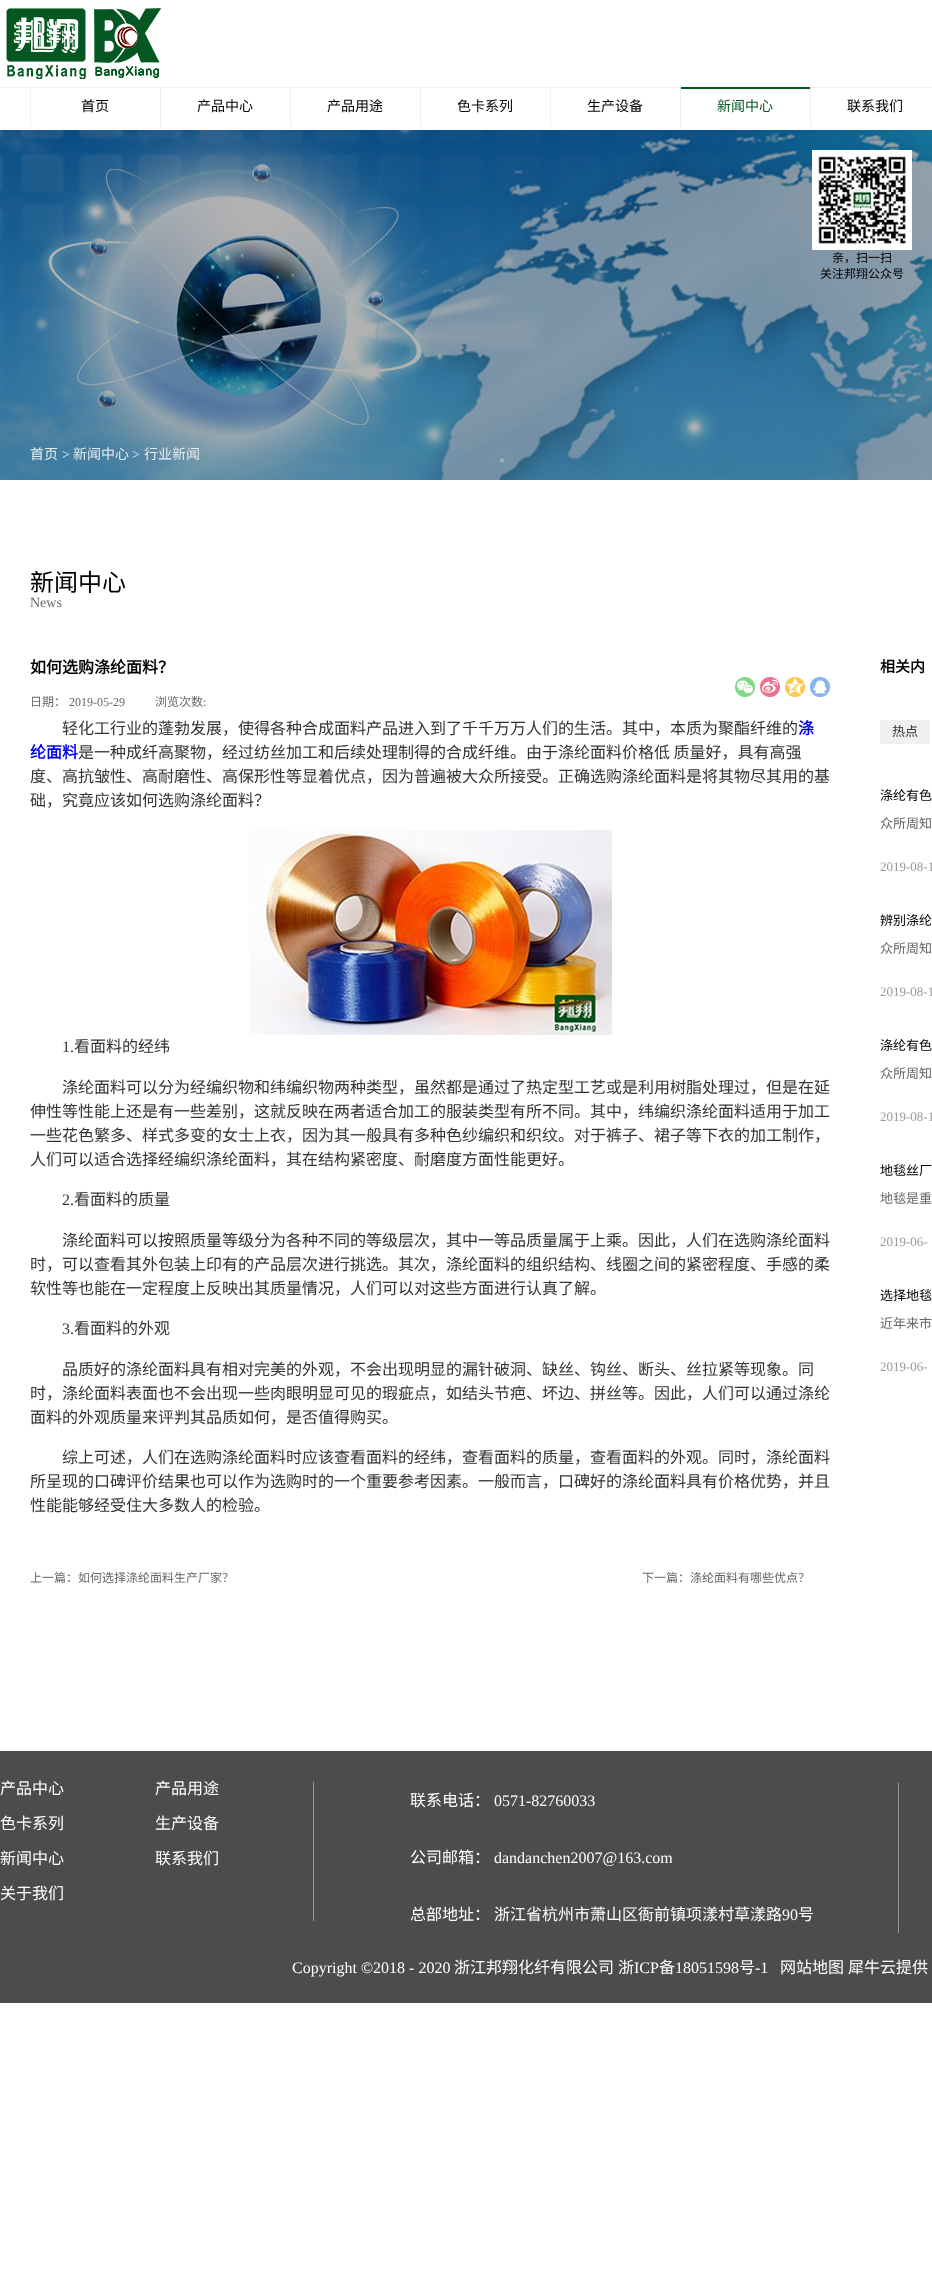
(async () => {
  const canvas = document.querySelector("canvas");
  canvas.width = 932;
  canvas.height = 2274;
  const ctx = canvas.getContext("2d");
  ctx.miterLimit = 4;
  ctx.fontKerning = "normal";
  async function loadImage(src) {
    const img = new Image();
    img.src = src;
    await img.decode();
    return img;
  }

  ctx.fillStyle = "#ffffff";
  ctx.fillRect(0, 0, 932, 2274);
  ctx.fillStyle = "#efefef";
  ctx.fillRect(0, 87, 932, 1);
  ctx.drawImage(await loadImage("img/1.png"), 6, 8, 155, 71);
  for (const [x, y, w, h, color] of [
    [30, 87, 1, 40, "#efefef"],
    [160, 87, 1, 40, "#efefef"],
    [290, 87, 1, 40, "#efefef"],
    [420, 87, 1, 40, "#efefef"],
    [550, 87, 1, 40, "#efefef"],
    [680, 87, 130, 2, "#045721"],
    [680, 87, 1, 40, "#efefef"],
    [810, 87, 1, 40, "#efefef"],
  ]) {
    ctx.fillStyle = color;
    ctx.fillRect(x, y, w, h);
  }
  ctx.drawImage(await loadImage("img/2.png"), 0, 130, 932, 350);
  ctx.drawImage(await loadImage("img/3.png"), 812, 150, 100, 100);
  ctx.drawImage(await loadImage("img/4.png"), 735, 677, 20, 20);
  ctx.drawImage(await loadImage("img/5.png"), 760, 677, 20, 20);
  ctx.drawImage(await loadImage("img/6.png"), 785, 677, 20, 20);
  ctx.drawImage(await loadImage("img/7.png"), 810, 677, 20, 20);
  ctx.drawImage(await loadImage("img/8.png"), 249, 830, 363, 205);
  for (const [x, y, w, h, color] of [
    [880, 720, 50, 24, "#f0f0f0"],
    [0, 1751, 932, 252, "#4c4c4c"],
    [313, 1782, 1, 139, "#90959e"],
    [898, 1783, 1, 150, "#90959e"],
  ]) {
    ctx.fillStyle = color;
    ctx.fillRect(x, y, w, h);
  }
  ctx.font = "14px Noto Sans CJK SC";
  ctx.fillStyle = "#000000";
  for (const [text, x, y] of [
    ["首页", 81, 111],
    ["产品中心", 197, 111],
    ["产品用途", 327, 111],
    ["色卡系列", 457, 111],
    ["生产设备", 587, 111],
  ]) {
    ctx.fillText(text, x, y);
  }
  ctx.fillStyle = "#045721";
  ctx.fillText("新闻中心", 717, 111);
  ctx.fillStyle = "#000000";
  ctx.fillText("联系我们", 847, 111);
  ctx.font = "12px Noto Sans CJK SC";
  ctx.fillText("亲，扫一扫", 832, 262);
  ctx.fillText("关注邦翔公众号", 820, 278);
  ctx.font = "14px Noto Sans CJK SC";
  ctx.fillStyle = "#eaeaea";
  ctx.fillText("首页", 30, 459);
  ctx.font = "14px Liberation Serif";
  ctx.fillText(">", 62, 459);
  ctx.font = "14px Noto Sans CJK SC";
  ctx.fillText("新闻中心", 73, 459);
  ctx.font = "14px Liberation Serif";
  ctx.fillText(">", 132, 459);
  ctx.font = "14px Noto Sans CJK SC";
  ctx.fillText("行业新闻", 144, 459);
  ctx.font = "24px Noto Sans CJK SC";
  ctx.fillStyle = "#000000";
  ctx.fillText("新闻中心", 30, 591);
  ctx.font = "14px Liberation Serif";
  ctx.fillStyle = "#666666";
  ctx.fillText("News", 30, 607);
  ctx.font = "bold 16px Noto Sans CJK SC";
  ctx.fillStyle = "#000000";
  ctx.fillText("如何选购涤纶面料？", 30, 673);
  ctx.font = "12px Noto Sans CJK SC";
  ctx.fillStyle = "#666666";
  ctx.fillText("日期：", 30, 706);
  ctx.font = "12px Liberation Serif";
  ctx.fillText("2019-05-29", 69, 706);
  ctx.font = "12px Noto Sans CJK SC";
  ctx.fillText("浏览次数", 155, 706);
  ctx.font = "12px Liberation Serif";
  ctx.fillText(":", 203, 706);
  ctx.font = "16px Noto Sans CJK SC";
  ctx.fillStyle = "#333333";
  ctx.fillText("轻化工行业的蓬勃发展，使得各种合成面料产品进入到了千千万万人们的生活。其中，本质为聚酯纤维的", 62, 734);
  ctx.font = "bold 16px Noto Sans CJK SC";
  ctx.fillStyle = "#0000ee";
  ctx.fillText("涤", 798, 734);
  ctx.fillText("纶面料", 30, 758);
  ctx.font = "16px Noto Sans CJK SC";
  ctx.fillStyle = "#333333";
  for (const [text, x, y] of [
    ["是一种成纤高聚物，经过纺丝加工和后续处理制得的合成纤维。由于涤纶面料价格低 质量好，具有高强", 78, 758],
    ["度、高抗皱性、高耐磨性、高保形性等显着优点，因为普遍被大众所接受。正确选购涤纶面料是将其物尽其用的基", 30, 782],
    ["础，究竟应该如何选购涤纶面料？", 30, 806],
  ]) {
    ctx.fillText(text, x, y);
  }
  ctx.font = "16px Liberation Serif";
  ctx.fillText("1.", 62, 1052);
  ctx.font = "16px Noto Sans CJK SC";
  for (const [text, x, y] of [
    ["看面料的经纬", 74, 1052],
    ["涤纶面料可以分为经编织物和纬编织物两种类型，虽然都是通过了热定型工艺或是利用树脂处理过，但是在延", 62, 1093],
    ["伸性等性能上还是有一些差别，这就反映在两者适合加工的服装类型有所不同。其中，纬编织涤纶面料适用于加工", 30, 1117],
    ["一些花色繁多、样式多变的女士上衣，因为其一般具有多种色纱编织和织纹。对于裤子、裙子等下衣的加工制作，", 30, 1141],
    ["人们可以适合选择经编织涤纶面料，其在结构紧密度、耐磨度方面性能更好。", 30, 1165],
  ]) {
    ctx.fillText(text, x, y);
  }
  ctx.font = "16px Liberation Serif";
  ctx.fillText("2.", 62, 1205);
  ctx.font = "16px Noto Sans CJK SC";
  for (const [text, x, y] of [
    ["看面料的质量", 74, 1205],
    ["涤纶面料可以按照质量等级分为各种不同的等级层次，其中一等品质量属于上乘。因此，人们在选购涤纶面料", 62, 1246],
    ["时，可以查看其外包装上印有的产品层次进行挑选。其次，涤纶面料的组织结构、线圈之间的紧密程度、手感的柔", 30, 1270],
    ["软性等也能在一定程度上反映出其质量情况，人们可以对这些方面进行认真了解。", 30, 1294],
  ]) {
    ctx.fillText(text, x, y);
  }
  ctx.font = "16px Liberation Serif";
  ctx.fillText("3.", 62, 1334);
  ctx.font = "16px Noto Sans CJK SC";
  for (const [text, x, y] of [
    ["看面料的外观", 74, 1334],
    ["品质好的涤纶面料具有相对完美的外观，不会出现明显的漏针破洞、缺丝、钩丝、断头、丝拉紧等现象。同", 62, 1375],
    ["时，涤纶面料表面也不会出现一些肉眼明显可见的瑕疵点，如结头节疤、坏边、拼丝等。因此，人们可以通过涤纶", 30, 1399],
    ["面料的外观质量来评判其品质如何，是否值得购买。", 30, 1423],
    ["综上可述，人们在选购涤纶面料时应该查看面料的经纬，查看面料的质量，查看面料的外观。同时，涤纶面料", 62, 1463],
    ["所呈现的口碑评价结果也可以作为选购时的一个重要参考因素。一般而言，口碑好的涤纶面料具有价格优势，并且", 30, 1487],
    ["性能能够经受住大多数人的检验。", 30, 1511],
  ]) {
    ctx.fillText(text, x, y);
  }
  ctx.font = "12px Noto Sans CJK SC";
  ctx.fillStyle = "#666666";
  ctx.fillText("上一篇：如何选择涤纶面料生产厂家？", 30, 1582);
  ctx.fillText("下一篇：涤纶面料有哪些优点？", 642, 1582);
  ctx.font = "bold 15px Noto Sans CJK SC";
  ctx.fillStyle = "#000000";
  ctx.fillText("相关内", 880, 672);
  ctx.font = "13px Noto Sans CJK SC";
  ctx.fillStyle = "#333333";
  ctx.fillText("热点", 892, 736);
  ctx.fillStyle = "#000000";
  ctx.fillText("涤纶有色", 880, 800);
  ctx.fillStyle = "#666666";
  ctx.fillText("众所周知", 880, 828);
  ctx.font = "13px Liberation Serif";
  ctx.fillStyle = "#999999";
  ctx.fillText("2019-08-1", 880, 871);
  ctx.font = "13px Noto Sans CJK SC";
  ctx.fillStyle = "#000000";
  ctx.fillText("辨别涤纶", 880, 925);
  ctx.fillStyle = "#666666";
  ctx.fillText("众所周知", 880, 953);
  ctx.font = "13px Liberation Serif";
  ctx.fillStyle = "#999999";
  ctx.fillText("2019-08-1", 880, 996);
  ctx.font = "13px Noto Sans CJK SC";
  ctx.fillStyle = "#000000";
  ctx.fillText("涤纶有色", 880, 1050);
  ctx.fillStyle = "#666666";
  ctx.fillText("众所周知", 880, 1078);
  ctx.font = "13px Liberation Serif";
  ctx.fillStyle = "#999999";
  ctx.fillText("2019-08-1", 880, 1121);
  ctx.font = "13px Noto Sans CJK SC";
  ctx.fillStyle = "#000000";
  ctx.fillText("地毯丝厂", 880, 1175);
  ctx.fillStyle = "#666666";
  ctx.fillText("地毯是重", 880, 1203);
  ctx.font = "13px Liberation Serif";
  ctx.fillStyle = "#999999";
  ctx.fillText("2019-06-", 880, 1246);
  ctx.font = "13px Noto Sans CJK SC";
  ctx.fillStyle = "#000000";
  ctx.fillText("选择地毯", 880, 1300);
  ctx.fillStyle = "#666666";
  ctx.fillText("近年来市", 880, 1328);
  ctx.font = "13px Liberation Serif";
  ctx.fillStyle = "#999999";
  ctx.fillText("2019-06-", 880, 1371);
  ctx.font = "16px Noto Sans CJK SC";
  ctx.fillStyle = "#ffffff";
  for (const [text, x, y] of [
    ["产品中心", 0, 1794],
    ["产品用途", 155, 1794],
    ["色卡系列", 0, 1829],
    ["生产设备", 155, 1829],
    ["新闻中心", 0, 1864],
    ["联系我们", 155, 1864],
    ["关于我们", 0, 1899],
    ["联系电话：", 410, 1806],
  ]) {
    ctx.fillText(text, x, y);
  }
  ctx.font = "16px Liberation Serif";
  ctx.fillText("0571-82760033", 494, 1806);
  ctx.font = "16px Noto Sans CJK SC";
  ctx.fillText("公司邮箱：", 410, 1863);
  ctx.font = "16px Liberation Serif";
  ctx.fillText("dandanchen2007@163.com", 494, 1863);
  ctx.font = "16px Noto Sans CJK SC";
  ctx.fillText("总部地址：", 410, 1920);
  ctx.fillText("浙江省杭州市萧山区衙前镇项漾村草漾路", 494, 1920);
  ctx.font = "16px Liberation Serif";
  ctx.fillText("90", 782, 1920);
  ctx.font = "16px Noto Sans CJK SC";
  ctx.fillText("号", 798, 1920);
  ctx.font = "16px Liberation Serif";
  ctx.fillText("Copyright ©2018 - 2020", 292, 1973);
  ctx.font = "16px Noto Sans CJK SC";
  ctx.fillText("浙江邦翔化纤有限公司", 454, 1973);
  ctx.fillText("浙", 618, 1973);
  ctx.font = "16px Liberation Serif";
  ctx.fillText("ICP", 634, 1973);
  ctx.font = "16px Noto Sans CJK SC";
  ctx.fillText("备", 659, 1973);
  ctx.font = "16px Liberation Serif";
  ctx.fillText("18051598", 675, 1973);
  ctx.font = "16px Noto Sans CJK SC";
  ctx.fillText("号", 739, 1973);
  ctx.font = "16px Liberation Serif";
  ctx.fillText("-1", 755, 1973);
  ctx.font = "16px Noto Sans CJK SC";
  ctx.fillText("网站地图", 780, 1973);
  ctx.fillText("犀牛云提供", 848, 1973);
})();
